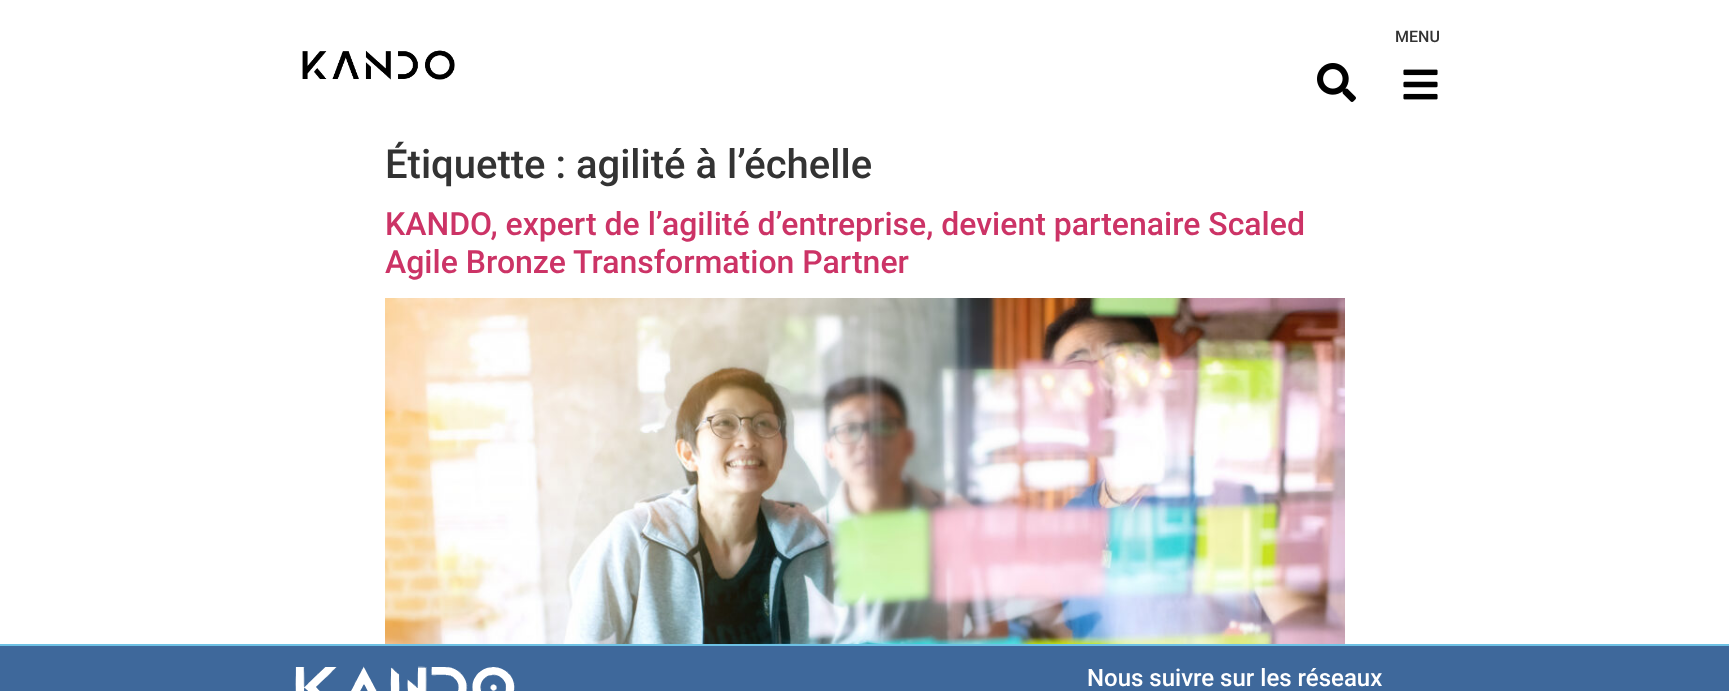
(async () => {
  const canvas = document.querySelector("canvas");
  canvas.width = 1729;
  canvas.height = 691;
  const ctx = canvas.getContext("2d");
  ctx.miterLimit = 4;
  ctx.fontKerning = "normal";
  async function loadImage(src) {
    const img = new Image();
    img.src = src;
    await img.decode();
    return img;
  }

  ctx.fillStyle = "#ffffff";
  ctx.fillRect(0, 0, 1729, 691);
  ctx.drawImage(await loadImage("img/1.png"), 1403, 69, 35, 31);
  ctx.drawImage(await loadImage("img/2.png"), 302, 50, 153, 30);
  ctx.drawImage(await loadImage("img/3.png"), 1317, 63, 39, 39);
  ctx.drawImage(await loadImage("img/4.png"), 385, 298, 960, 346);
  ctx.fillStyle = "#6ec1e4";
  ctx.fillRect(0, 644, 1729, 2);
  ctx.fillStyle = "#3e689b";
  ctx.fillRect(0, 646, 1729, 45);
  ctx.drawImage(await loadImage("img/5.png"), 295, 666, 220, 25);
  ctx.font = "500 16px Roboto";
  ctx.fillStyle = "#333333";
  ctx.fillText("MENU", 1395, 42);
  ctx.font = "500 40px Roboto";
  ctx.fillText("Étiquette : agilité à l’échelle", 385, 178);
  ctx.font = "500 32px Roboto";
  ctx.fillStyle = "#cc3366";
  ctx.fillText("KANDO, expert de l’agilité d’entreprise, devient partenaire Scaled", 385, 235);
  ctx.fillText("Agile Bronze Transformation Partner", 385, 273);
  ctx.font = "500 24px Roboto";
  ctx.fillStyle = "#ffffff";
  ctx.fillText("Nous suivre sur les réseaux", 1087, 686);
})();
